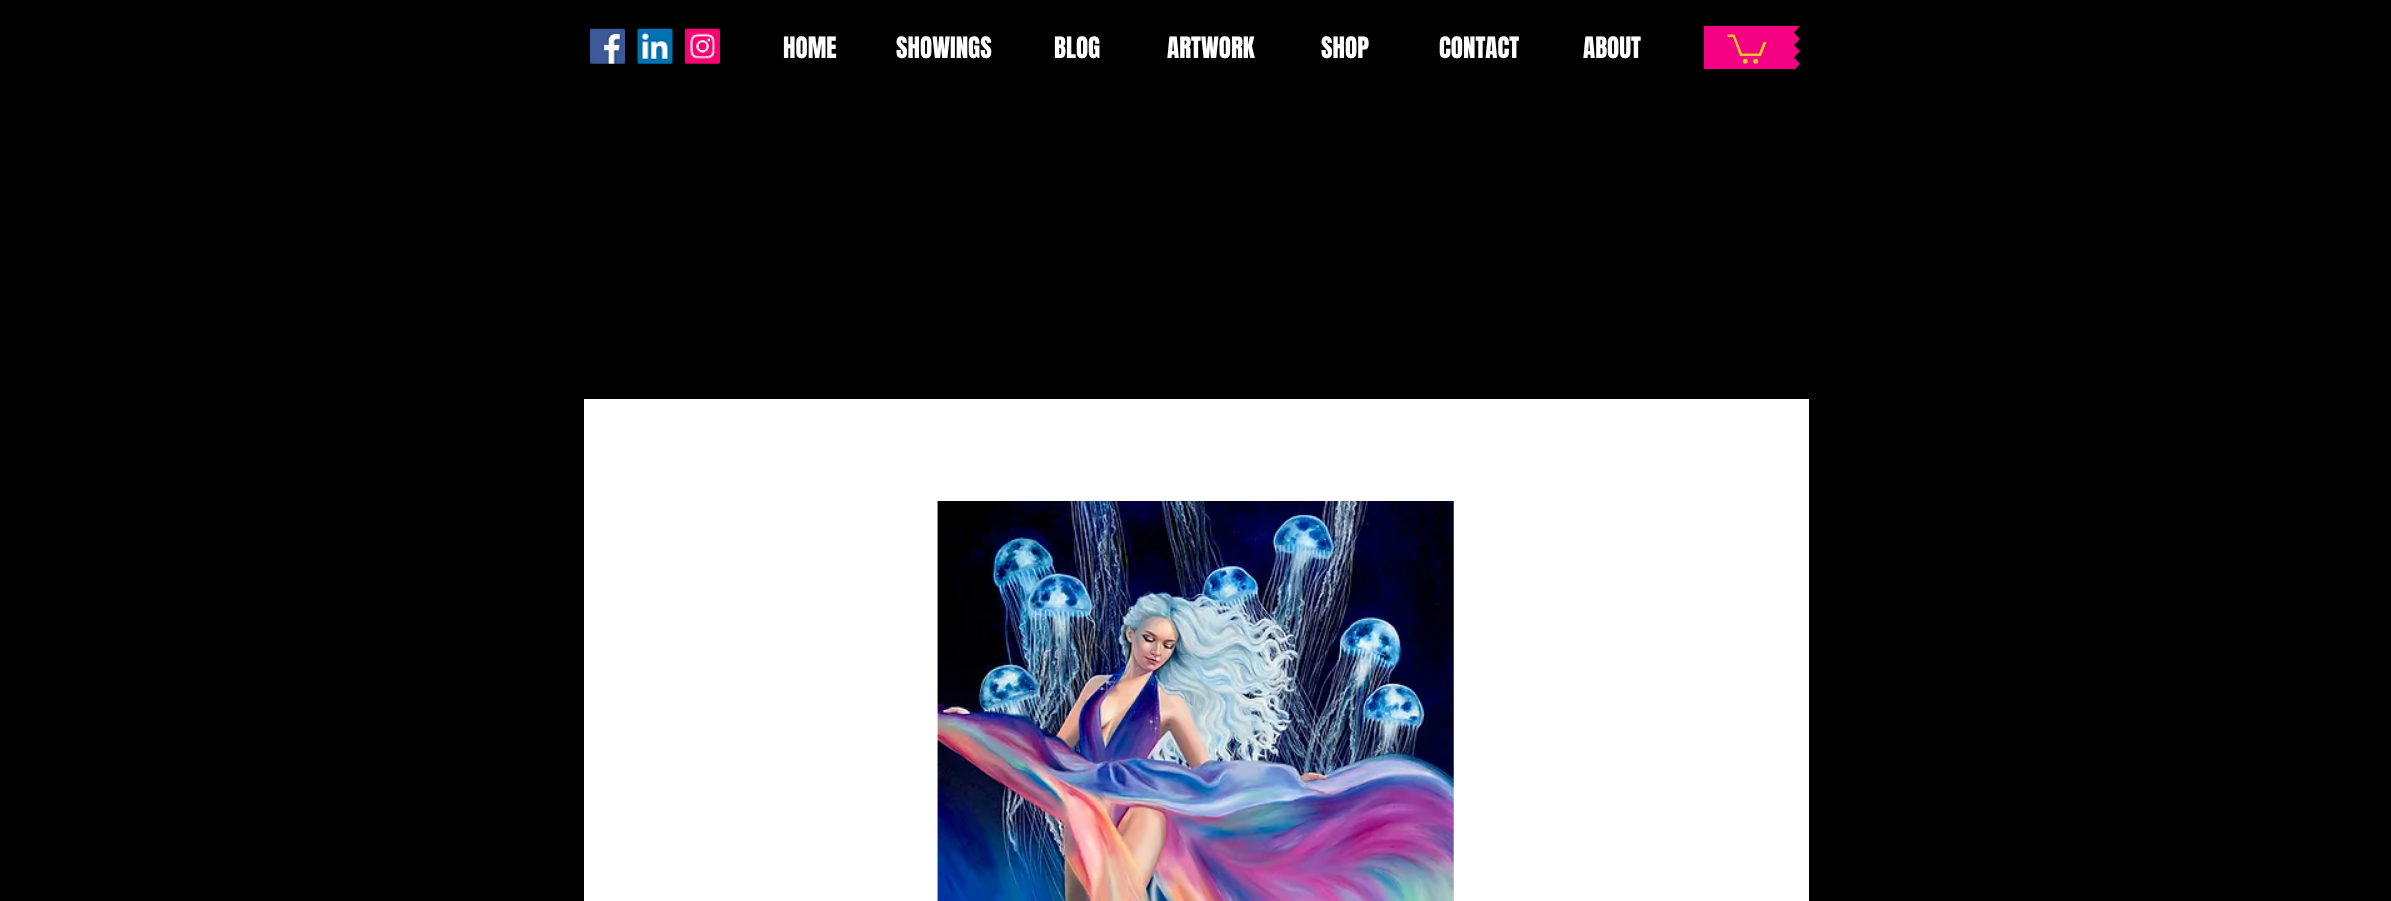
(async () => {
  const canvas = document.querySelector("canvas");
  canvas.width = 2391;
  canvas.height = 901;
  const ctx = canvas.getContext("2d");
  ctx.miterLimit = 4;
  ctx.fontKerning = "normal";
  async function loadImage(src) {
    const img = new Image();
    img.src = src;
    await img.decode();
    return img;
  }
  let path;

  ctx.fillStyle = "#000000";
  ctx.fillRect(0, 0, 2391, 901);
  ctx.drawImage(await loadImage("img/1.png"), 590, 28, 35, 36);
  ctx.drawImage(await loadImage("img/2.png"), 637, 28, 36, 36);
  ctx.drawImage(await loadImage("img/3.png"), 685, 28, 35, 36);
  ctx.fillStyle = "#f40082";
  ctx.fillRect(1704, 26, 90, 43);
  ctx.save();
  ctx.beginPath();
  ctx.rect(1794, 26, 6, 43);
  ctx.clip();
  path = new Path2D("M1794 32.5V20L1800 26Z");
  ctx.fill(path);
  ctx.restore();
  path = new Path2D("M1794 45V32.5L1800 39ZM1794 57.5V45L1800 51Z");
  ctx.fill(path);
  path = new Path2D("M1794 70V57.5L1800 64Z");
  ctx.fill(path);
  ctx.fillStyle = "#e8c529";
  path = new Path2D("M1766.5 42L1761 56H1740L1733 37H1727.5V34.5H1734.5L1742 53.5H1759L1763.5 42");
  ctx.fill(path);
  ctx.beginPath();
  ctx.arc(1755.7, 61.2, 2.5, 0, Math.PI * 2);
  ctx.fill();
  ctx.beginPath();
  ctx.arc(1745.3, 61.2, 2.5, 0, Math.PI * 2);
  ctx.fill();
  ctx.fillStyle = "#ffffff";
  ctx.fillRect(584, 399, 1225, 502);
  ctx.drawImage(await loadImage("img/4.png"), 937, 501, 517, 400);
  ctx.font = "25px Anton";
  for (const [text, x, y] of [
    ["HOME", 783, 58],
    ["SHOWINGS", 896, 58],
    ["BLOG", 1054, 58],
    ["ARTWORK", 1167, 58],
    ["SHOP", 1321, 58],
    ["CONTACT", 1439, 58],
    ["ABOUT", 1583, 58],
  ]) {
    ctx.fillText(text, x, y);
  }
})();
